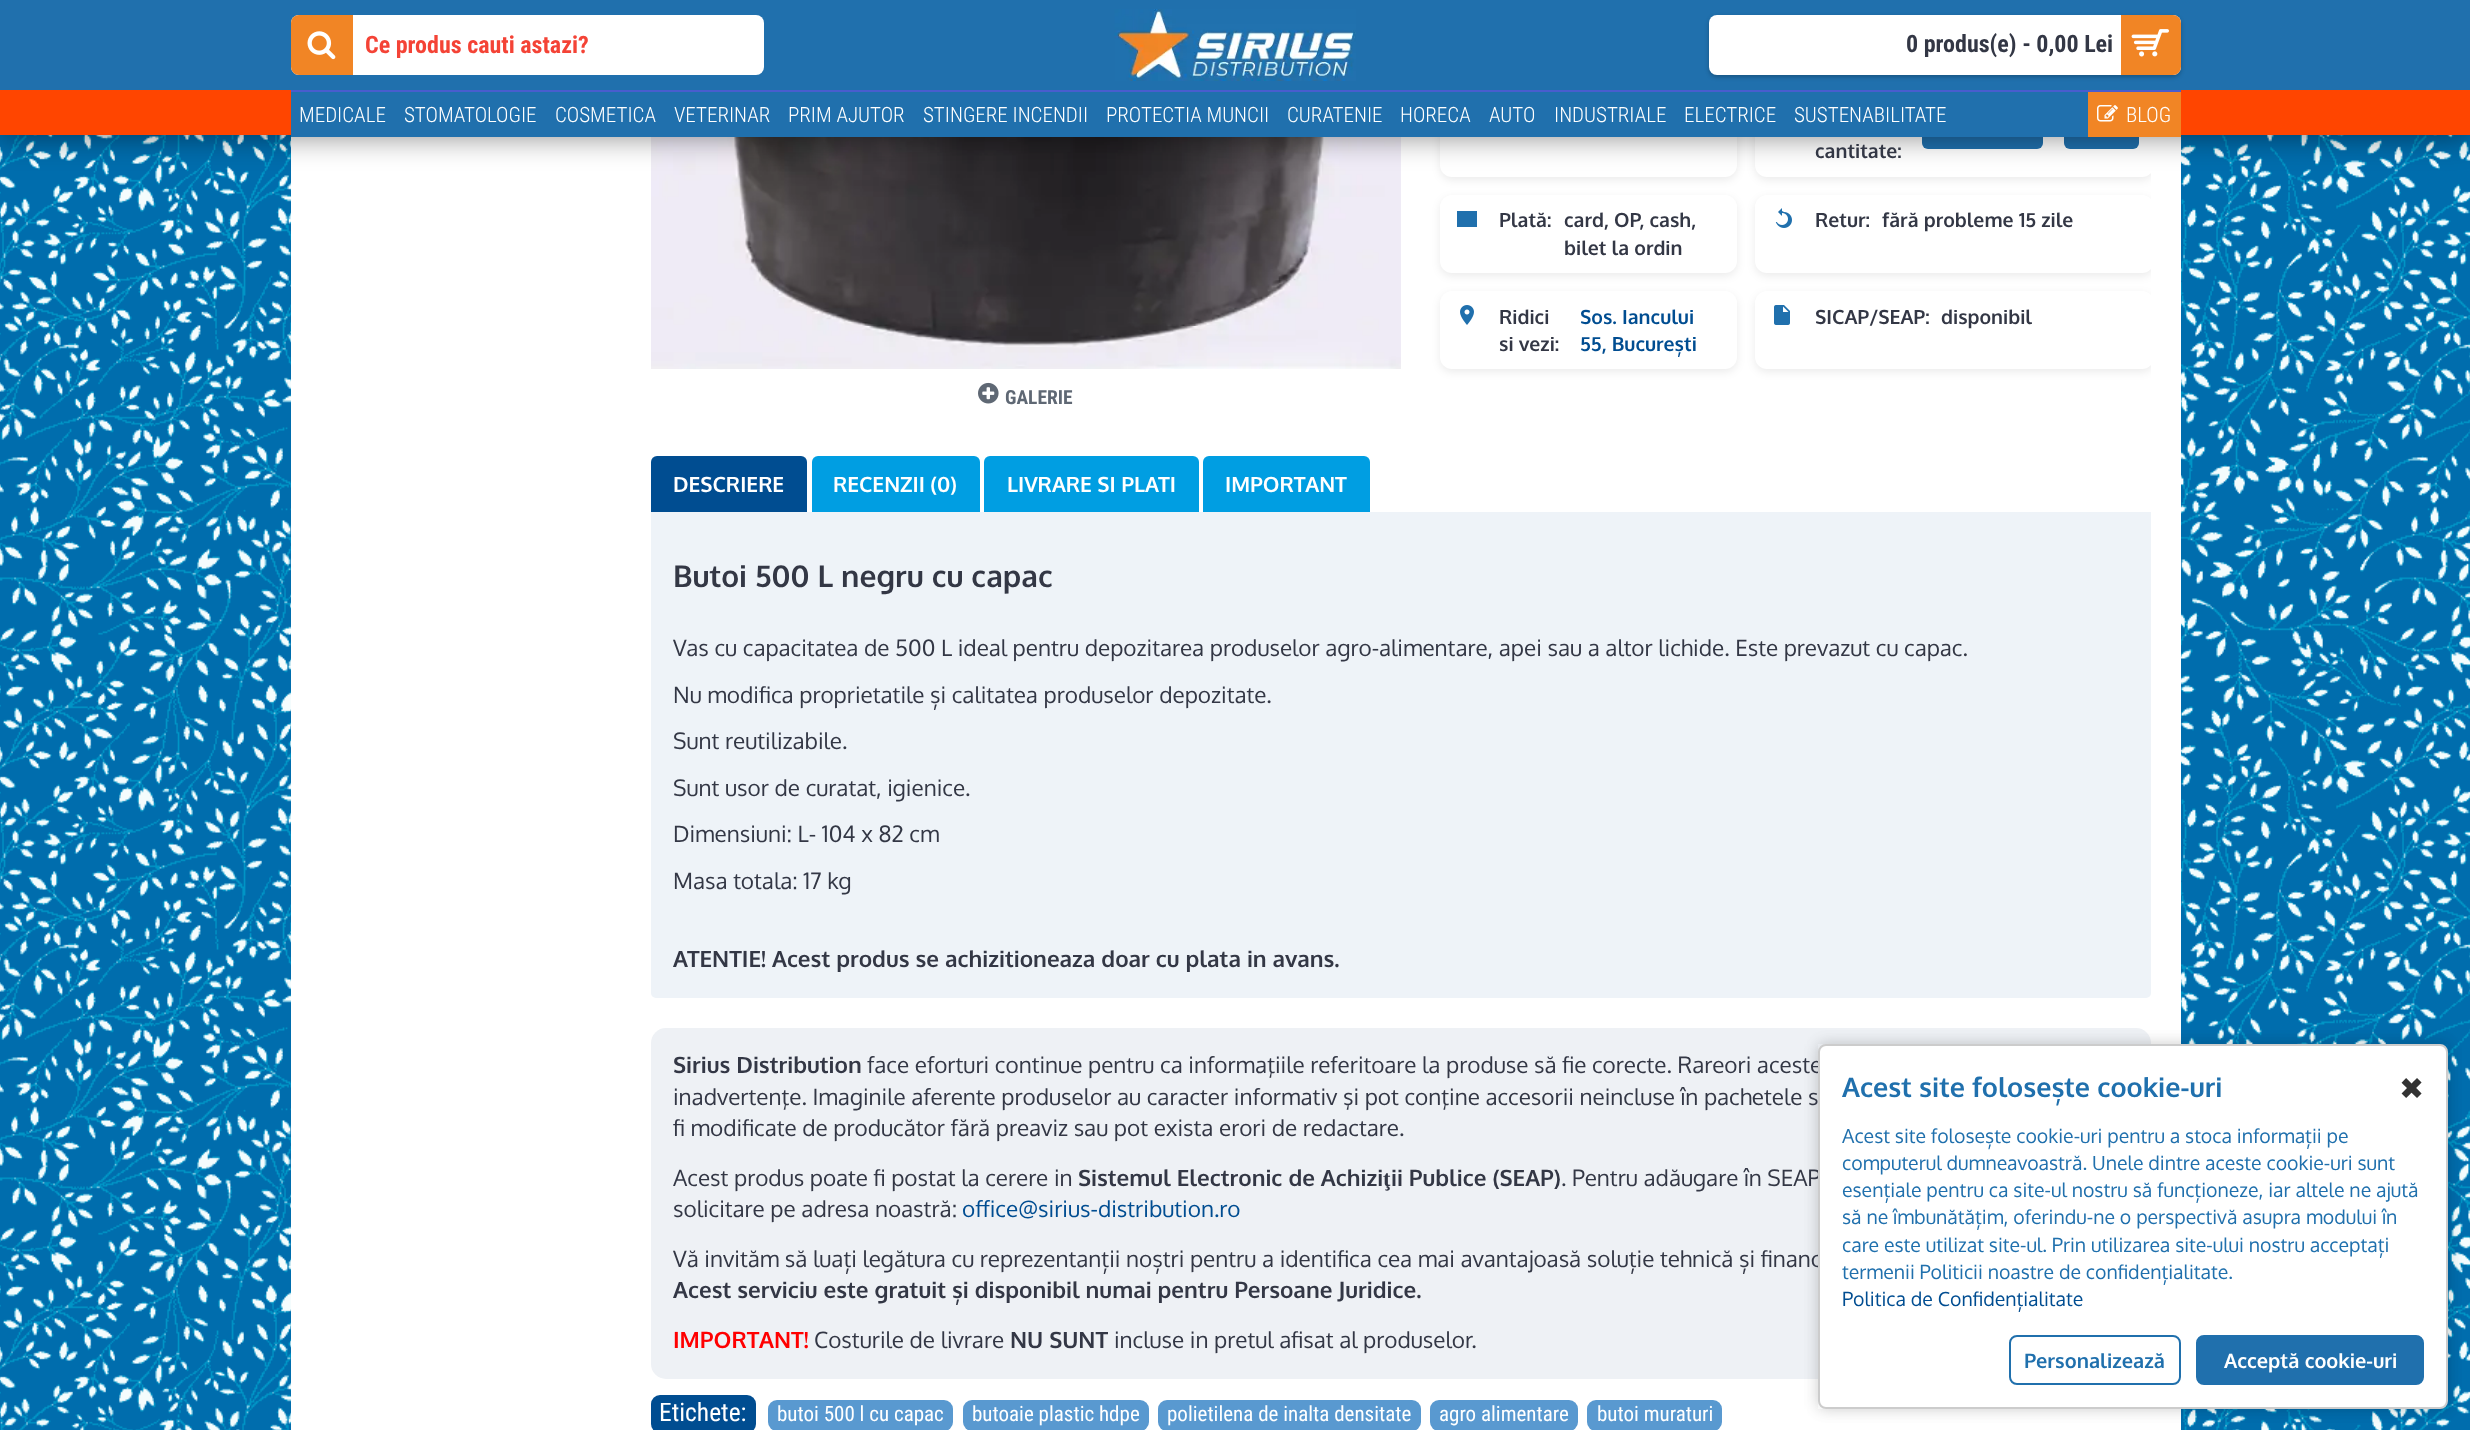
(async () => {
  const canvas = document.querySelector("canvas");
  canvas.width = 2470;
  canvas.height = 1430;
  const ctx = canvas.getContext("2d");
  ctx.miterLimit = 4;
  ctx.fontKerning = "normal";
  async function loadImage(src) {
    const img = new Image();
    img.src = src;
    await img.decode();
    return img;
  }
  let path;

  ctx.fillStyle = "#ffffff";
  ctx.fillRect(0, 0, 2470, 1430);
  ctx.drawImage(await loadImage("img/1.png"), 0, 135, 2470, 1295);
  ctx.fillRect(291, 137, 1890, 1293);
  ctx.fillStyle = "rgba(0, 0, 0, 0.08)";
  ctx.filter = "blur(4.5px)";
  ctx.beginPath();
  ctx.roundRect(1440, 101, 297, 79, 12);
  ctx.fill();
  ctx.filter = "none";
  ctx.fillStyle = "#ffffff";
  ctx.beginPath();
  ctx.roundRect(1440, 98, 297, 79, 12);
  ctx.fill();
  ctx.save();
  ctx.beginPath();
  ctx.rect(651, 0, 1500, 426);
  ctx.clip();
  ctx.fillStyle = "rgba(0, 0, 0, 0.08)";
  ctx.filter = "blur(4.5px)";
  ctx.beginPath();
  ctx.roundRect(1755, 101, 399, 79, 12);
  ctx.fill();
  ctx.filter = "none";
  ctx.restore();
  ctx.save();
  ctx.beginPath();
  ctx.rect(651, 0, 1500, 426);
  ctx.clip();
  ctx.beginPath();
  ctx.roundRect(1755, 98, 399, 79, 12);
  ctx.fill();
  ctx.restore();
  ctx.fillStyle = "#2070ad";
  ctx.beginPath();
  ctx.roundRect(1922, 110, 121, 39, 6);
  ctx.fill();
  ctx.beginPath();
  ctx.roundRect(2064, 110, 75, 39, 6);
  ctx.fill();
  ctx.drawImage(await loadImage("img/9.png"), 651, 137, 750, 232);
  ctx.fillStyle = "rgba(0, 0, 0, 0.45)";
  ctx.filter = "blur(15px)";
  ctx.beginPath();
  ctx.rect(0, 2, 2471, 135);
  ctx.fill();
  ctx.filter = "none";
  ctx.fillStyle = "#2070ad";
  ctx.fillRect(0, 0, 2470, 90);
  ctx.fillStyle = "#ffffff";
  ctx.beginPath();
  ctx.roundRect(291, 15, 473, 60, 8);
  ctx.fill();
  ctx.fillStyle = "#f18525";
  ctx.beginPath();
  ctx.roundRect(291, 15, 62, 60, [8, 0, 0, 8]);
  ctx.fill();
  ctx.drawImage(await loadImage("img/2.png"), 307, 31, 29, 29);
  ctx.drawImage(await loadImage("img/3.png"), 1114, 9, 242, 72);
  ctx.fillStyle = "rgba(0, 0, 0, 0.25)";
  ctx.filter = "blur(2px)";
  ctx.beginPath();
  ctx.roundRect(1709, 17, 472, 60, 8);
  ctx.fill();
  ctx.filter = "none";
  ctx.fillStyle = "#ffffff";
  ctx.beginPath();
  ctx.roundRect(1709, 15, 472, 60, 8);
  ctx.fill();
  ctx.fillStyle = "#f18525";
  ctx.beginPath();
  ctx.roundRect(2121, 15, 60, 60, [0, 8, 8, 0]);
  ctx.fill();
  ctx.drawImage(await loadImage("img/4.png"), 2131, 29, 38, 28);
  for (const [x, y, w, h, color] of [
    [0, 90, 2470, 45, "#ff4500"],
    [291, 92, 1797, 45, "#2070ad"],
    [291, 90, 1890, 2, "#495dce"],
    [2088, 92, 93, 45, "#f18525"],
  ]) {
    ctx.fillStyle = color;
    ctx.fillRect(x, y, w, h);
  }
  ctx.drawImage(await loadImage("img/5.png"), 2097, 105, 21, 17);
  ctx.fillStyle = "rgba(0, 0, 0, 0.08)";
  ctx.filter = "blur(4.5px)";
  ctx.beginPath();
  ctx.roundRect(1440, 198, 297, 78, 12);
  ctx.fill();
  ctx.filter = "none";
  ctx.fillStyle = "#ffffff";
  ctx.beginPath();
  ctx.roundRect(1440, 195, 297, 78, 12);
  ctx.fill();
  ctx.fillStyle = "#2070ad";
  ctx.fillRect(1457, 211, 20, 16);
  ctx.save();
  ctx.beginPath();
  ctx.rect(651, 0, 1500, 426);
  ctx.clip();
  ctx.fillStyle = "rgba(0, 0, 0, 0.08)";
  ctx.filter = "blur(4.5px)";
  ctx.beginPath();
  ctx.roundRect(1755, 198, 399, 78, 12);
  ctx.fill();
  ctx.filter = "none";
  ctx.restore();
  ctx.save();
  ctx.beginPath();
  ctx.rect(651, 0, 1500, 426);
  ctx.clip();
  ctx.fillStyle = "#ffffff";
  ctx.beginPath();
  ctx.roundRect(1755, 195, 399, 78, 12);
  ctx.fill();
  ctx.restore();
  ctx.drawImage(await loadImage("img/6.png"), 1775, 208, 17, 20);
  ctx.fillStyle = "rgba(0, 0, 0, 0.08)";
  ctx.filter = "blur(4.5px)";
  ctx.beginPath();
  ctx.roundRect(1440, 294, 297, 78, 12);
  ctx.fill();
  ctx.filter = "none";
  ctx.fillStyle = "#ffffff";
  ctx.beginPath();
  ctx.roundRect(1440, 291, 297, 78, 12);
  ctx.fill();
  ctx.drawImage(await loadImage("img/7.png"), 1460, 305, 14, 20);
  ctx.save();
  ctx.beginPath();
  ctx.rect(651, 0, 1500, 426);
  ctx.clip();
  ctx.fillStyle = "rgba(0, 0, 0, 0.08)";
  ctx.filter = "blur(4.5px)";
  ctx.beginPath();
  ctx.roundRect(1755, 294, 399, 78, 12);
  ctx.fill();
  ctx.filter = "none";
  ctx.restore();
  ctx.save();
  ctx.beginPath();
  ctx.rect(651, 0, 1500, 426);
  ctx.clip();
  ctx.beginPath();
  ctx.roundRect(1755, 291, 399, 78, 12);
  ctx.fill();
  ctx.restore();
  ctx.drawImage(await loadImage("img/8.png"), 1774, 305, 16, 20);
  ctx.drawImage(await loadImage("img/10.png"), 978, 382, 21, 22);
  ctx.fillStyle = "#004d91";
  ctx.beginPath();
  ctx.roundRect(651, 456, 156, 56, [6, 6, 0, 0]);
  ctx.fill();
  ctx.fillStyle = "#009ee2";
  ctx.beginPath();
  ctx.roundRect(812, 456, 168, 56, [6, 6, 0, 0]);
  ctx.fill();
  ctx.beginPath();
  ctx.roundRect(984, 456, 215, 56, [6, 6, 0, 0]);
  ctx.fill();
  ctx.beginPath();
  ctx.roundRect(1203, 456, 167, 56, [6, 6, 0, 0]);
  ctx.fill();
  ctx.fillStyle = "#eef3f8";
  ctx.beginPath();
  ctx.roundRect(651, 512, 1500, 486, [0, 0, 5, 5]);
  ctx.fill();
  ctx.fillStyle = "#eef1f5";
  ctx.beginPath();
  ctx.roundRect(651, 1028, 1500, 351, 15);
  ctx.fill();
  ctx.fillStyle = "#004d91";
  ctx.beginPath();
  ctx.roundRect(651, 1395, 105, 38, 9);
  ctx.fill();
  ctx.fillStyle = "#5999d0";
  ctx.beginPath();
  ctx.roundRect(768, 1400, 185, 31, 9);
  ctx.fill();
  ctx.beginPath();
  ctx.roundRect(963, 1400, 186, 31, 9);
  ctx.fill();
  ctx.beginPath();
  ctx.roundRect(1158, 1400, 263, 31, 9);
  ctx.fill();
  ctx.beginPath();
  ctx.roundRect(1430, 1400, 148, 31, 9);
  ctx.fill();
  ctx.beginPath();
  ctx.roundRect(1587, 1400, 135, 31, 9);
  ctx.fill();
  ctx.save();
  path = new Path2D("M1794 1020H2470V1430H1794ZM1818 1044H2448V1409H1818Z");
  ctx.clip(path, "evenodd");
  ctx.fillStyle = "rgba(0, 0, 0, 0.1)";
  ctx.filter = "blur(7.5px)";
  ctx.beginPath();
  ctx.rect(1818, 1044, 630, 365);
  ctx.fill();
  ctx.filter = "none";
  ctx.restore();
  ctx.fillStyle = "rgba(0, 0, 0, 0.1)";
  ctx.filter = "blur(7.5px)";
  ctx.beginPath();
  ctx.roundRect(1818, 1044, 630, 365, 8);
  ctx.fill();
  ctx.filter = "none";
  ctx.font = "bold 24px Roboto Condensed";
  ctx.fillStyle = "#f44336";
  ctx.fillText("Ce produs cauti astazi?", 365, 53);
  ctx.fillStyle = "#333745";
  ctx.fillText("0 produs(e) - 0,00 Lei", 1906, 52);
  ctx.font = "300 21px Roboto Condensed";
  ctx.fillStyle = "#ffffff";
  for (const [text, x, y] of [
    ["MEDICALE", 299, 122],
    ["STOMATOLOGIE", 404, 122],
    ["COSMETICA", 555, 122],
    ["VETERINAR", 674, 122],
    ["PRIM AJUTOR", 788, 122],
    ["STINGERE INCENDII", 923, 122],
    ["PROTECTIA MUNCII", 1106, 122],
    ["CURATENIE", 1287, 122],
    ["HORECA", 1400, 122],
    ["AUTO", 1489, 122],
    ["INDUSTRIALE", 1554, 122],
    ["ELECTRICE", 1684, 122],
    ["SUSTENABILITATE", 1794, 122],
    ["BLOG", 2126, 122],
  ]) {
    ctx.fillText(text, x, y);
  }
  ctx.font = "bold 19.5px Oxygen";
  ctx.fillStyle = "#333745";
  for (const [text, x, y] of [
    ["cantitate:", 1815, 158],
    ["Plată:", 1499, 227],
    ["card, OP, cash,", 1564, 227],
    ["bilet la ordin", 1564, 255],
    ["Retur:", 1815, 227],
    ["fără probleme 15 zile", 1882, 227],
    ["Ridici", 1499, 324],
    ["si vezi:", 1499, 351],
  ]) {
    ctx.fillText(text, x, y);
  }
  ctx.fillStyle = "#004d91";
  ctx.fillText("Sos. Iancului", 1580, 324);
  ctx.fillText("55, București", 1580, 351);
  ctx.fillStyle = "#333745";
  ctx.fillText("SICAP/SEAP:", 1815, 324);
  ctx.fillText("disponibil", 1941, 324);
  ctx.font = "bold 19.5px Roboto Condensed";
  ctx.fillStyle = "#5f6874";
  ctx.fillText("GALERIE", 1005, 404);
  ctx.font = "bold 21px Oxygen";
  ctx.fillStyle = "#ffffff";
  for (const [text, x, y] of [
    ["DESCRIERE", 673, 492],
    ["RECENZII (0)", 833, 492],
    ["LIVRARE SI PLATI", 1007, 492],
    ["IMPORTANT", 1225, 492],
  ]) {
    ctx.fillText(text, x, y);
  }
  ctx.font = "bold 30px Oxygen";
  ctx.fillStyle = "#333745";
  ctx.fillText("Butoi 500 L negru cu capac", 673, 587);
  ctx.font = "22.5px Oxygen";
  for (const [text, x, y] of [
    ["Vas cu capacitatea de 500 L ideal pentru depozitarea produselor agro-alimentare, apei sau a altor lichide. Este prevazut cu capac.", 673, 656],
    ["Nu modifica proprietatile și calitatea produselor depozitate.", 673, 703],
    ["Sunt reutilizabile.", 673, 749],
    ["Sunt usor de curatat, igienice.", 673, 796],
    ["Dimensiuni: L- 104 x 82 cm", 673, 842],
    ["Masa totala: 17 kg", 673, 889],
  ]) {
    ctx.fillText(text, x, y);
  }
  ctx.font = "bold 22.5px Oxygen";
  ctx.fillText("ATENTIE! Acest produs se achizitioneaza doar cu plata in avans.", 673, 967);
  ctx.fillText("Sirius Distribution", 673, 1073);
  ctx.font = "22.5px Oxygen";
  for (const [text, x, y] of [
    ["face eforturi continue pentru ca informaţiile referitoare la produse să fie corecte. Rareori aceste", 867, 1073],
    ["inadvertenţe. Imaginile aferente produselor au caracter informativ şi pot conţine accesorii neincluse în pachetele s", 673, 1105],
    ["fi modificate de producător fără preaviz sau pot exista erori de redactare.", 673, 1136],
    ["Acest produs poate fi postat la cerere in", 673, 1186],
  ]) {
    ctx.fillText(text, x, y);
  }
  ctx.font = "bold 22.5px Oxygen";
  ctx.fillText("Sistemul Electronic de Achizi", 1078, 1186);
  ctx.font = "bold 22.5px Liberation Serif";
  ctx.fillText("ţ", 1383, 1186);
  ctx.font = "bold 22.5px Oxygen";
  ctx.fillText("ii Publice (SEAP)", 1391, 1186);
  ctx.font = "22.5px Oxygen";
  ctx.fillText(". Pentru adăugare în SEAP", 1561, 1186);
  ctx.fillText("solicitare pe adresa noastră:", 673, 1217);
  ctx.fillStyle = "#004d91";
  ctx.fillText("office@sirius-distribution.ro", 962, 1217);
  ctx.fillStyle = "#333745";
  ctx.fillText("Vă invităm să luați legătura cu reprezentanții noștri pentru a identifica cea mai avantajoasă soluție tehnică și financ", 673, 1267);
  ctx.font = "bold 22.5px Oxygen";
  ctx.fillText("Acest serviciu este gratuit și disponibil numai pentru Persoane Juridice.", 673, 1298);
  ctx.fillStyle = "#ff0000";
  ctx.fillText("IMPORTANT!", 673, 1348);
  ctx.font = "22.5px Oxygen";
  ctx.fillStyle = "#333745";
  ctx.fillText("Costurile de livrare", 814, 1348);
  ctx.font = "bold 22.5px Oxygen";
  ctx.fillText("NU SUNT", 1010, 1348);
  ctx.font = "22.5px Oxygen";
  ctx.fillText("incluse in pretul afisat al produselor.", 1114, 1348);
  ctx.font = "25.5px Roboto Condensed";
  ctx.fillStyle = "#ffffff";
  ctx.fillText("Etichete:", 659, 1421);
  ctx.font = "21px Roboto Condensed";
  for (const [text, x, y] of [
    ["butoi 500 l cu capac", 777, 1421],
    ["butoaie plastic hdpe", 972, 1421],
    ["polietilena de inalta densitate", 1167, 1421],
    ["agro alimentare", 1439, 1421],
    ["butoi muraturi", 1597, 1421],
  ]) {
    ctx.fillText(text, x, y);
  }
  ctx.beginPath();
  ctx.roundRect(1819, 1045, 628, 363, 7);
  ctx.fill();
  ctx.strokeStyle = "#cccccc";
  ctx.lineWidth = 2;
  ctx.stroke();
  ctx.font = "bold 27px Oxygen";
  ctx.fillStyle = "#2070ad";
  ctx.fillText("Acest site folosește cookie-uri", 1842, 1097);
  ctx.font = "30px DejaVu Sans";
  ctx.fillStyle = "#333333";
  ctx.fillText("✖", 2399, 1099);
  ctx.font = "19.5px Oxygen";
  ctx.fillStyle = "#2070ad";
  for (const [text, x, y] of [
    ["Acest site folosește cookie-uri pentru a stoca informații pe", 1842, 1143],
    ["computerul dumneavoastră. Unele dintre aceste cookie-uri sunt", 1842, 1170],
    ["esențiale pentru ca site-ul nostru să funcționeze, iar altele ne ajută", 1842, 1197],
    ["să ne îmbunătățim, oferindu-ne o perspectivă asupra modului în", 1842, 1224],
    ["care este utilizat site-ul. Prin utilizarea site-ului nostru acceptați", 1842, 1252],
    ["termenii Politicii noastre de confidențialitate.", 1842, 1279],
  ]) {
    ctx.fillText(text, x, y);
  }
  ctx.fillStyle = "#004d91";
  ctx.fillText("Politica de Confidențialitate", 1842, 1306);
  ctx.beginPath();
  ctx.roundRect(2010, 1336, 170, 48, 7);
  ctx.strokeStyle = "#2070ad";
  ctx.stroke();
  ctx.font = "bold 20px Oxygen";
  ctx.fillStyle = "#2070ad";
  ctx.fillText("Personalizează", 2024, 1368);
  ctx.beginPath();
  ctx.roundRect(2197, 1336, 226, 48, 7);
  ctx.fill();
  ctx.stroke();
  ctx.fillStyle = "#ffffff";
  ctx.fillText("Acceptă cookie-uri", 2224, 1368);
})();
